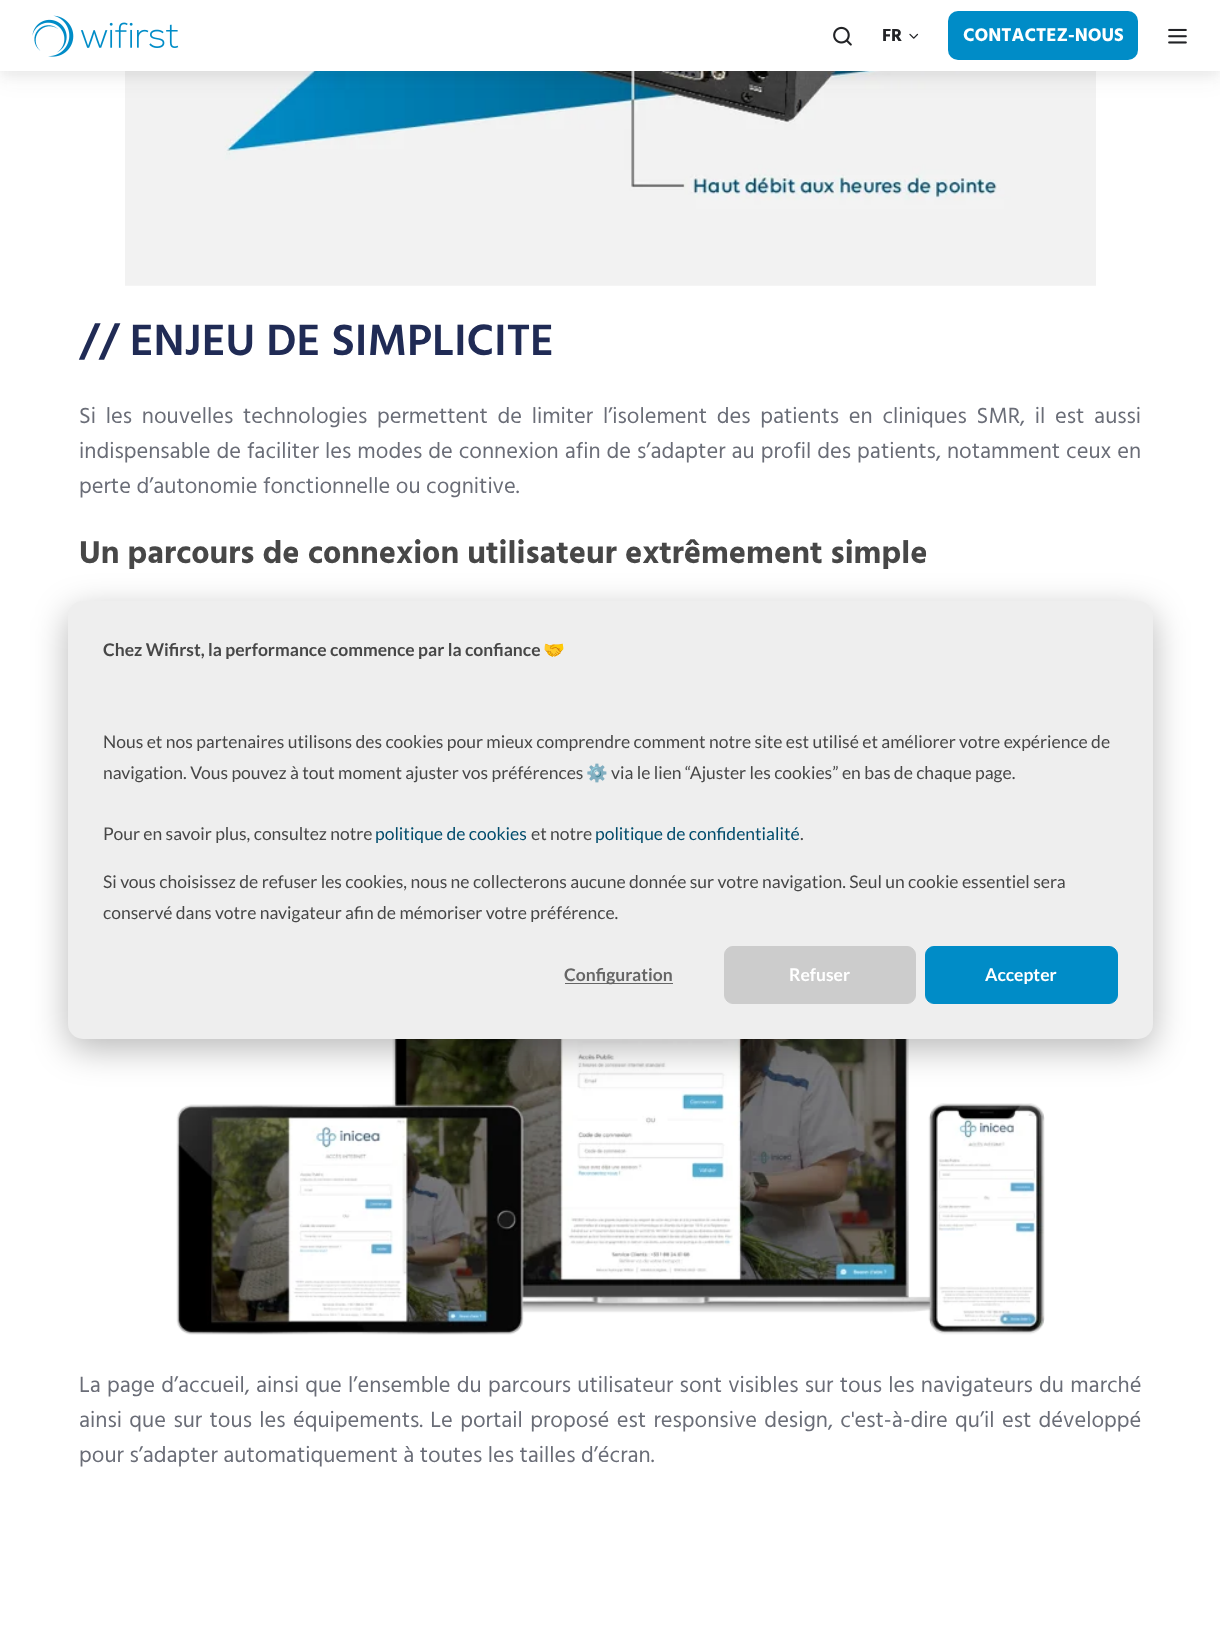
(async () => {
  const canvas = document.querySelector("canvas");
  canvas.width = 1220;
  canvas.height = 1638;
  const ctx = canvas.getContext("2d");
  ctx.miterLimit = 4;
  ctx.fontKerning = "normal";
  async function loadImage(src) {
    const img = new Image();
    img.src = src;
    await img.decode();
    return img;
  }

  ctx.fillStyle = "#ffffff";
  ctx.fillRect(0, 0, 1220, 1638);
  ctx.drawImage(await loadImage("img/5.png"), 125, 71, 971, 215);
  ctx.fillStyle = "rgba(34, 35, 38, 0.05)";
  ctx.filter = "blur(5px)";
  ctx.beginPath();
  ctx.rect(0, 5, 1220, 71);
  ctx.fill();
  ctx.filter = "none";
  ctx.filter = "blur(10px)";
  ctx.beginPath();
  ctx.rect(0, 10, 1220, 71);
  ctx.fill();
  ctx.filter = "none";
  ctx.fillStyle = "#ffffff";
  ctx.fillRect(0, 0, 1220, 71);
  ctx.drawImage(await loadImage("img/1.png"), 32, 15, 147, 42);
  ctx.drawImage(await loadImage("img/2.png"), 833, 26, 19, 20);
  ctx.drawImage(await loadImage("img/3.png"), 909, 33, 10, 6);
  ctx.fillStyle = "#008cc7";
  ctx.beginPath();
  ctx.roundRect(948, 11, 190, 49, 10);
  ctx.fill();
  ctx.drawImage(await loadImage("img/4.png"), 1168, 28, 19, 16);
  ctx.drawImage(await loadImage("img/6.png"), 176, 1039, 869, 296);
  ctx.fillStyle = "rgba(0, 0, 0, 0.28)";
  ctx.filter = "blur(17.5px)";
  ctx.beginPath();
  ctx.roundRect(68, 611, 1085, 438, 15);
  ctx.fill();
  ctx.filter = "none";
  ctx.fillStyle = "#eeeeee";
  ctx.beginPath();
  ctx.roundRect(68, 601, 1085, 438, 15);
  ctx.fill();
  ctx.fillStyle = "#666666";
  ctx.fillRect(565, 983, 108, 1);
  ctx.fillStyle = "#cccccc";
  ctx.beginPath();
  ctx.roundRect(724.5, 946.5, 191, 57, 8.5);
  ctx.fill();
  ctx.strokeStyle = "#cccccc";
  ctx.stroke();
  ctx.fillStyle = "#008cc7";
  ctx.beginPath();
  ctx.roundRect(925.5, 946.5, 192, 57, 8.5);
  ctx.fill();
  ctx.strokeStyle = "#008cc7";
  ctx.stroke();
  ctx.font = "bold 18px Hind Madurai";
  ctx.fillStyle = "#222326";
  ctx.fillText("FR", 882, 41);
  ctx.font = "bold 18.75px Hind Madurai";
  ctx.fillStyle = "#ffffff";
  ctx.fillText("CONTACTEZ-NOUS", 963, 41);
  ctx.font = "600 45px Hind Madurai";
  ctx.fillStyle = "#202b55";
  ctx.fillText("// ENJEU DE SIMPLICITE", 79, 355);
  ctx.wordSpacing = "4.25px";
  ctx.font = "22.5px Hind Madurai";
  ctx.fillStyle = "#6a6d77";
  ctx.fillText("Si les nouvelles technologies permettent de limiter l’isolement des patients en cliniques SMR, il est aussi", 79, 423);
  ctx.wordSpacing = "0.5px";
  ctx.fillText("indispensable de faciliter les modes de connexion afin de s’adapter au profil des patients, notamment ceux en", 79, 458);
  ctx.wordSpacing = "0px";
  ctx.fillText("perte d’autonomie fonctionnelle ou cognitive.", 79, 493);
  ctx.font = "bold 32.4px Hind Madurai";
  ctx.fillStyle = "#474747";
  ctx.fillText("Un parcours de connexion utilisateur extrêmement simple", 79, 563);
  ctx.wordSpacing = "0.75px";
  ctx.font = "22.5px Hind Madurai";
  ctx.fillStyle = "#6a6d77";
  ctx.fillText("La page d’accueil, ainsi que l’ensemble du parcours utilisateur sont visibles sur tous les navigateurs du marché", 79, 1392);
  ctx.wordSpacing = "1.9px";
  ctx.fillText("ainsi que sur tous les équipements. Le portail proposé est responsive design, c'est-à-dire qu’il est développé", 79, 1427);
  ctx.wordSpacing = "0px";
  ctx.fillText("pour s’adapter automatiquement à toutes les tailles d’écran.", 79, 1462);
  ctx.font = "bold 17.5px Lato";
  ctx.fillStyle = "#474747";
  ctx.fillText("Chez Wifirst, la performance commence par la confiance", 103, 656);
  ctx.font = "bold 17.5px Noto Color Emoji";
  ctx.fillText("🤝", 543, 656);
  ctx.font = "17.5px Lato";
  ctx.fillText("Nous et nos partenaires utilisons des cookies pour mieux comprendre comment notre site est utilisé et améliorer votre expérience de", 103, 748);
  ctx.fillText("navigation. Vous pouvez à tout moment ajuster vos préférences", 103, 779);
  ctx.font = "17.5px Noto Color Emoji";
  ctx.fillText("⚙️", 586, 779);
  ctx.font = "17.5px Lato";
  ctx.fillText("via le lien “Ajuster les cookies” en bas de chaque page.", 611, 779);
  ctx.fillText("Pour en savoir plus, consultez notre", 103, 840);
  ctx.fillStyle = "#004c6c";
  ctx.fillText("politique de cookies", 375, 840);
  ctx.fillStyle = "#474747";
  ctx.fillText("et notre", 531, 840);
  ctx.fillStyle = "#004c6c";
  ctx.fillText("politique de confidentialité", 595, 840);
  ctx.fillStyle = "#474747";
  for (const [text, x, y] of [
    [".", 800, 840],
    ["Si vous choisissez de refuser les cookies, nous ne collecterons aucune donnée sur votre navigation. Seul un cookie essentiel sera", 103, 888],
    ["conservé dans votre navigateur afin de mémoriser votre préférence.", 103, 919],
  ]) {
    ctx.fillText(text, x, y);
  }
  ctx.font = "bold 17.5px Lato";
  ctx.fillStyle = "#666666";
  ctx.fillText("Configuration", 564, 981);
  ctx.fillStyle = "#ffffff";
  ctx.fillText("Refuser", 789, 981);
  ctx.fillText("Accepter", 985, 981);
})();
